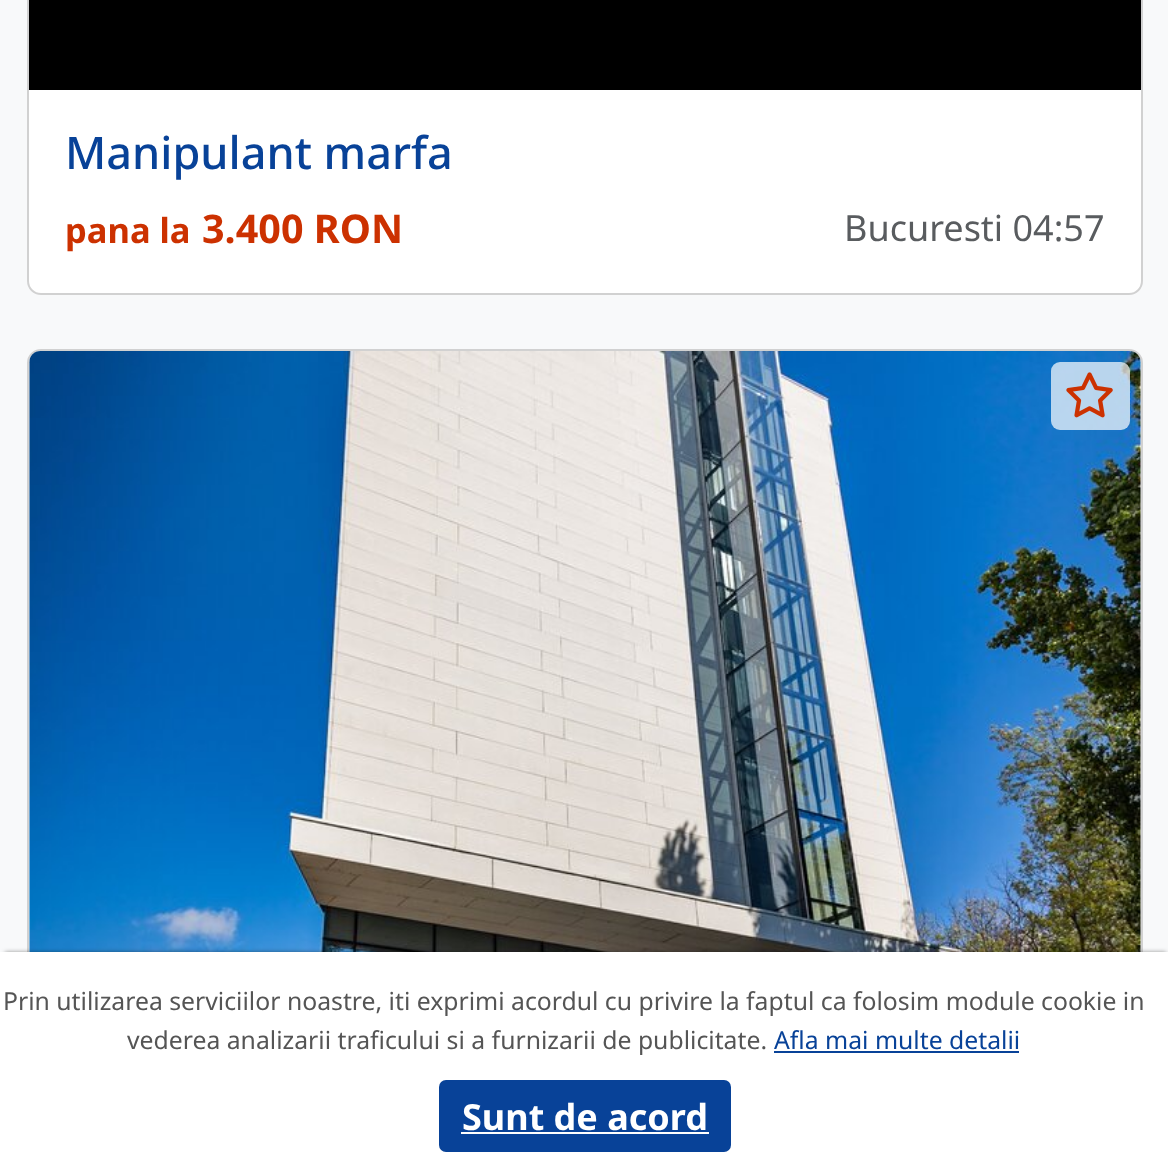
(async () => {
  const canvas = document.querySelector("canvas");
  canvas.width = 1168;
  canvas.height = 1165;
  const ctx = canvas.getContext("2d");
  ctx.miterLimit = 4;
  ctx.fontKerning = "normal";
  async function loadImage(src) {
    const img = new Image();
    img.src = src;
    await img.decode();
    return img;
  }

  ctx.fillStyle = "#f8f9fa";
  ctx.fillRect(0, 0, 1168, 1165);
  ctx.fillStyle = "#ffffff";
  ctx.beginPath();
  ctx.roundRect(27, -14, 1116, 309, 14);
  ctx.fill();
  ctx.beginPath();
  ctx.roundRect(28, -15, 1114, 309, 13);
  ctx.strokeStyle = "rgba(0, 0, 0, 0.18)";
  ctx.lineWidth = 2;
  ctx.stroke();
  ctx.fillStyle = "#000000";
  ctx.fillRect(29, 0, 1112, 90);
  ctx.fillStyle = "#ffffff";
  ctx.beginPath();
  ctx.roundRect(27, 349, 1116, 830, 14);
  ctx.fill();
  ctx.beginPath();
  ctx.roundRect(28, 350, 1114, 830, 13);
  ctx.stroke();
  ctx.drawImage(await loadImage("img/1.png"), 29, 351, 1112, 601);
  ctx.fillStyle = "rgba(255, 255, 255, 0.7)";
  ctx.beginPath();
  ctx.roundRect(1051, 362, 79, 68, 9);
  ctx.fill();
  ctx.drawImage(await loadImage("img/2.png"), 1066, 372, 47, 46);
  ctx.fillStyle = "rgba(0, 0, 0, 0.4)";
  ctx.filter = "blur(2px)";
  ctx.beginPath();
  ctx.rect(5, 952, 1161, 205);
  ctx.fill();
  ctx.filter = "none";
  ctx.fillStyle = "#ffffff";
  ctx.fillRect(0, 952, 1168, 213);
  ctx.fillStyle = "#084298";
  ctx.fillRect(774, 1051, 245, 2);
  ctx.beginPath();
  ctx.roundRect(439, 1080, 292, 72, 7);
  ctx.fill();
  ctx.fillStyle = "#ffffff";
  ctx.fillRect(461, 1132, 248, 2);
  ctx.font = "500 45px Noto Sans";
  ctx.fillStyle = "#084298";
  ctx.fillText("Manipulant marfa", 65, 169);
  ctx.font = "bold 34.5px Noto Sans";
  ctx.fillStyle = "#cc3100";
  ctx.fillText("pana la", 65, 243);
  ctx.font = "bold 39.5px Noto Sans";
  ctx.fillText("3.400 RON", 202, 243);
  ctx.font = "36px Noto Sans";
  ctx.fillStyle = "#595c5f";
  ctx.fillText("Bucuresti 04:57", 844, 241);
  ctx.font = "24.75px Noto Sans";
  ctx.fillStyle = "#555555";
  ctx.fillText("Prin utilizarea serviciilor noastre, iti exprimi acordul cu privire la faptul ca folosim module cookie in", 3, 1010);
  ctx.fillText("vederea analizarii traficului si a furnizarii de publicitate.", 127, 1049);
  ctx.fillStyle = "#084298";
  ctx.fillText("Afla mai multe detalii", 774, 1049);
  ctx.font = "bold 36px Noto Sans";
  ctx.fillStyle = "#ffffff";
  ctx.fillText("Sunt de acord", 462, 1130);
})();
